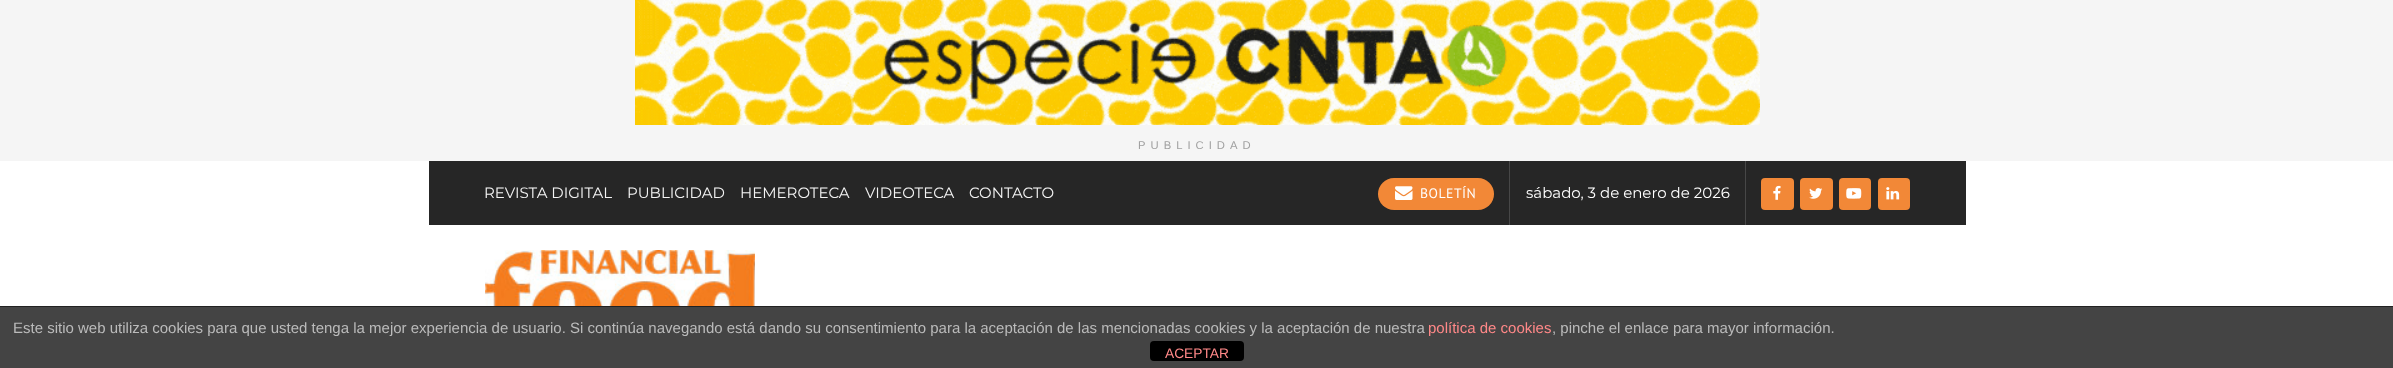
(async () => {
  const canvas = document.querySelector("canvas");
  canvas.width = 2393;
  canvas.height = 368;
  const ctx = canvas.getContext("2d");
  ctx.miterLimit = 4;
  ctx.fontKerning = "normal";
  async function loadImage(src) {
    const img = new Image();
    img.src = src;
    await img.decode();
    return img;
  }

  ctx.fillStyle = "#ffffff";
  ctx.fillRect(0, 0, 2393, 368);
  ctx.fillStyle = "#f5f5f5";
  ctx.fillRect(0, 0, 2393, 161);
  ctx.drawImage(await loadImage("img/1.png"), 635, 0, 1125, 125);
  ctx.fillStyle = "#262626";
  ctx.fillRect(429, 161, 1537, 64);
  ctx.fillStyle = "#474747";
  ctx.fillRect(1509, 161, 1, 64);
  ctx.fillStyle = "#f28837";
  ctx.beginPath();
  ctx.roundRect(1378, 178, 116, 32, 16);
  ctx.fill();
  ctx.drawImage(await loadImage("img/2.png"), 1395, 186, 18, 14);
  ctx.fillStyle = "#474747";
  ctx.fillRect(1745, 161, 1, 64);
  ctx.fillStyle = "#f28837";
  ctx.beginPath();
  ctx.roundRect(1761, 178, 33, 32, 4);
  ctx.fill();
  ctx.drawImage(await loadImage("img/3.png"), 1773, 185, 8, 15);
  ctx.beginPath();
  ctx.roundRect(1800, 178, 33, 32, 4);
  ctx.fill();
  ctx.drawImage(await loadImage("img/4.png"), 1809, 188, 14, 11);
  ctx.beginPath();
  ctx.roundRect(1839, 178, 32, 32, 4);
  ctx.fill();
  ctx.drawImage(await loadImage("img/5.png"), 1846, 188, 16, 11);
  ctx.beginPath();
  ctx.roundRect(1878, 178, 32, 32, 4);
  ctx.fill();
  ctx.drawImage(await loadImage("img/6.png"), 1886, 187, 14, 13);
  ctx.drawImage(await loadImage("img/7.png"), 485, 250, 270, 56);
  ctx.fillStyle = "#444444";
  ctx.fillRect(0, 307, 2393, 61);
  ctx.fillStyle = "#222222";
  ctx.fillRect(0, 306, 2393, 1);
  ctx.fillStyle = "#000000";
  ctx.beginPath();
  ctx.roundRect(1150, 341, 94, 20, 4);
  ctx.fill();
  ctx.letterSpacing = "5px";
  ctx.font = "11.25px Liberation Sans";
  ctx.fillStyle = "#a0a0a0";
  ctx.fillText("PUBLICIDAD", 1138, 149);
  ctx.letterSpacing = "0px";
  ctx.font = "15px Montserrat";
  ctx.fillStyle = "#f4f4f4";
  for (const [text, x, y] of [
    ["REVISTA DIGITAL", 484, 198],
    ["PUBLICIDAD", 627, 198],
    ["HEMEROTECA", 740, 198],
    ["VIDEOTECA", 865, 198],
    ["CONTACTO", 969, 198],
  ]) {
    ctx.fillText(text, x, y);
  }
  ctx.letterSpacing = "0.5px";
  ctx.font = "13.75px PT Sans";
  ctx.fillStyle = "#ffffff";
  ctx.fillText("BOLETÍN", 1420, 198);
  ctx.letterSpacing = "0px";
  ctx.font = "15px Montserrat";
  ctx.fillText("sábado, 3 de enero de 2026", 1526, 198);
  ctx.font = "15px Liberation Sans";
  ctx.fillStyle = "#bbbbbb";
  ctx.fillText("Este sitio web utiliza cookies para que usted tenga la mejor experiencia de usuario. Si continúa navegando está dando su consentimiento para la aceptación de las mencionadas cookies y la aceptación de nuestra", 13, 333);
  ctx.fillStyle = "#ff8888";
  ctx.fillText("política de cookies", 1428, 333);
  ctx.fillStyle = "#bbbbbb";
  ctx.fillText(", pinche el enlace para mayor información.", 1552, 333);
  ctx.font = "13.75px Liberation Sans";
  ctx.fillStyle = "#ff8888";
  ctx.fillText("ACEPTAR", 1165, 358);
})();
